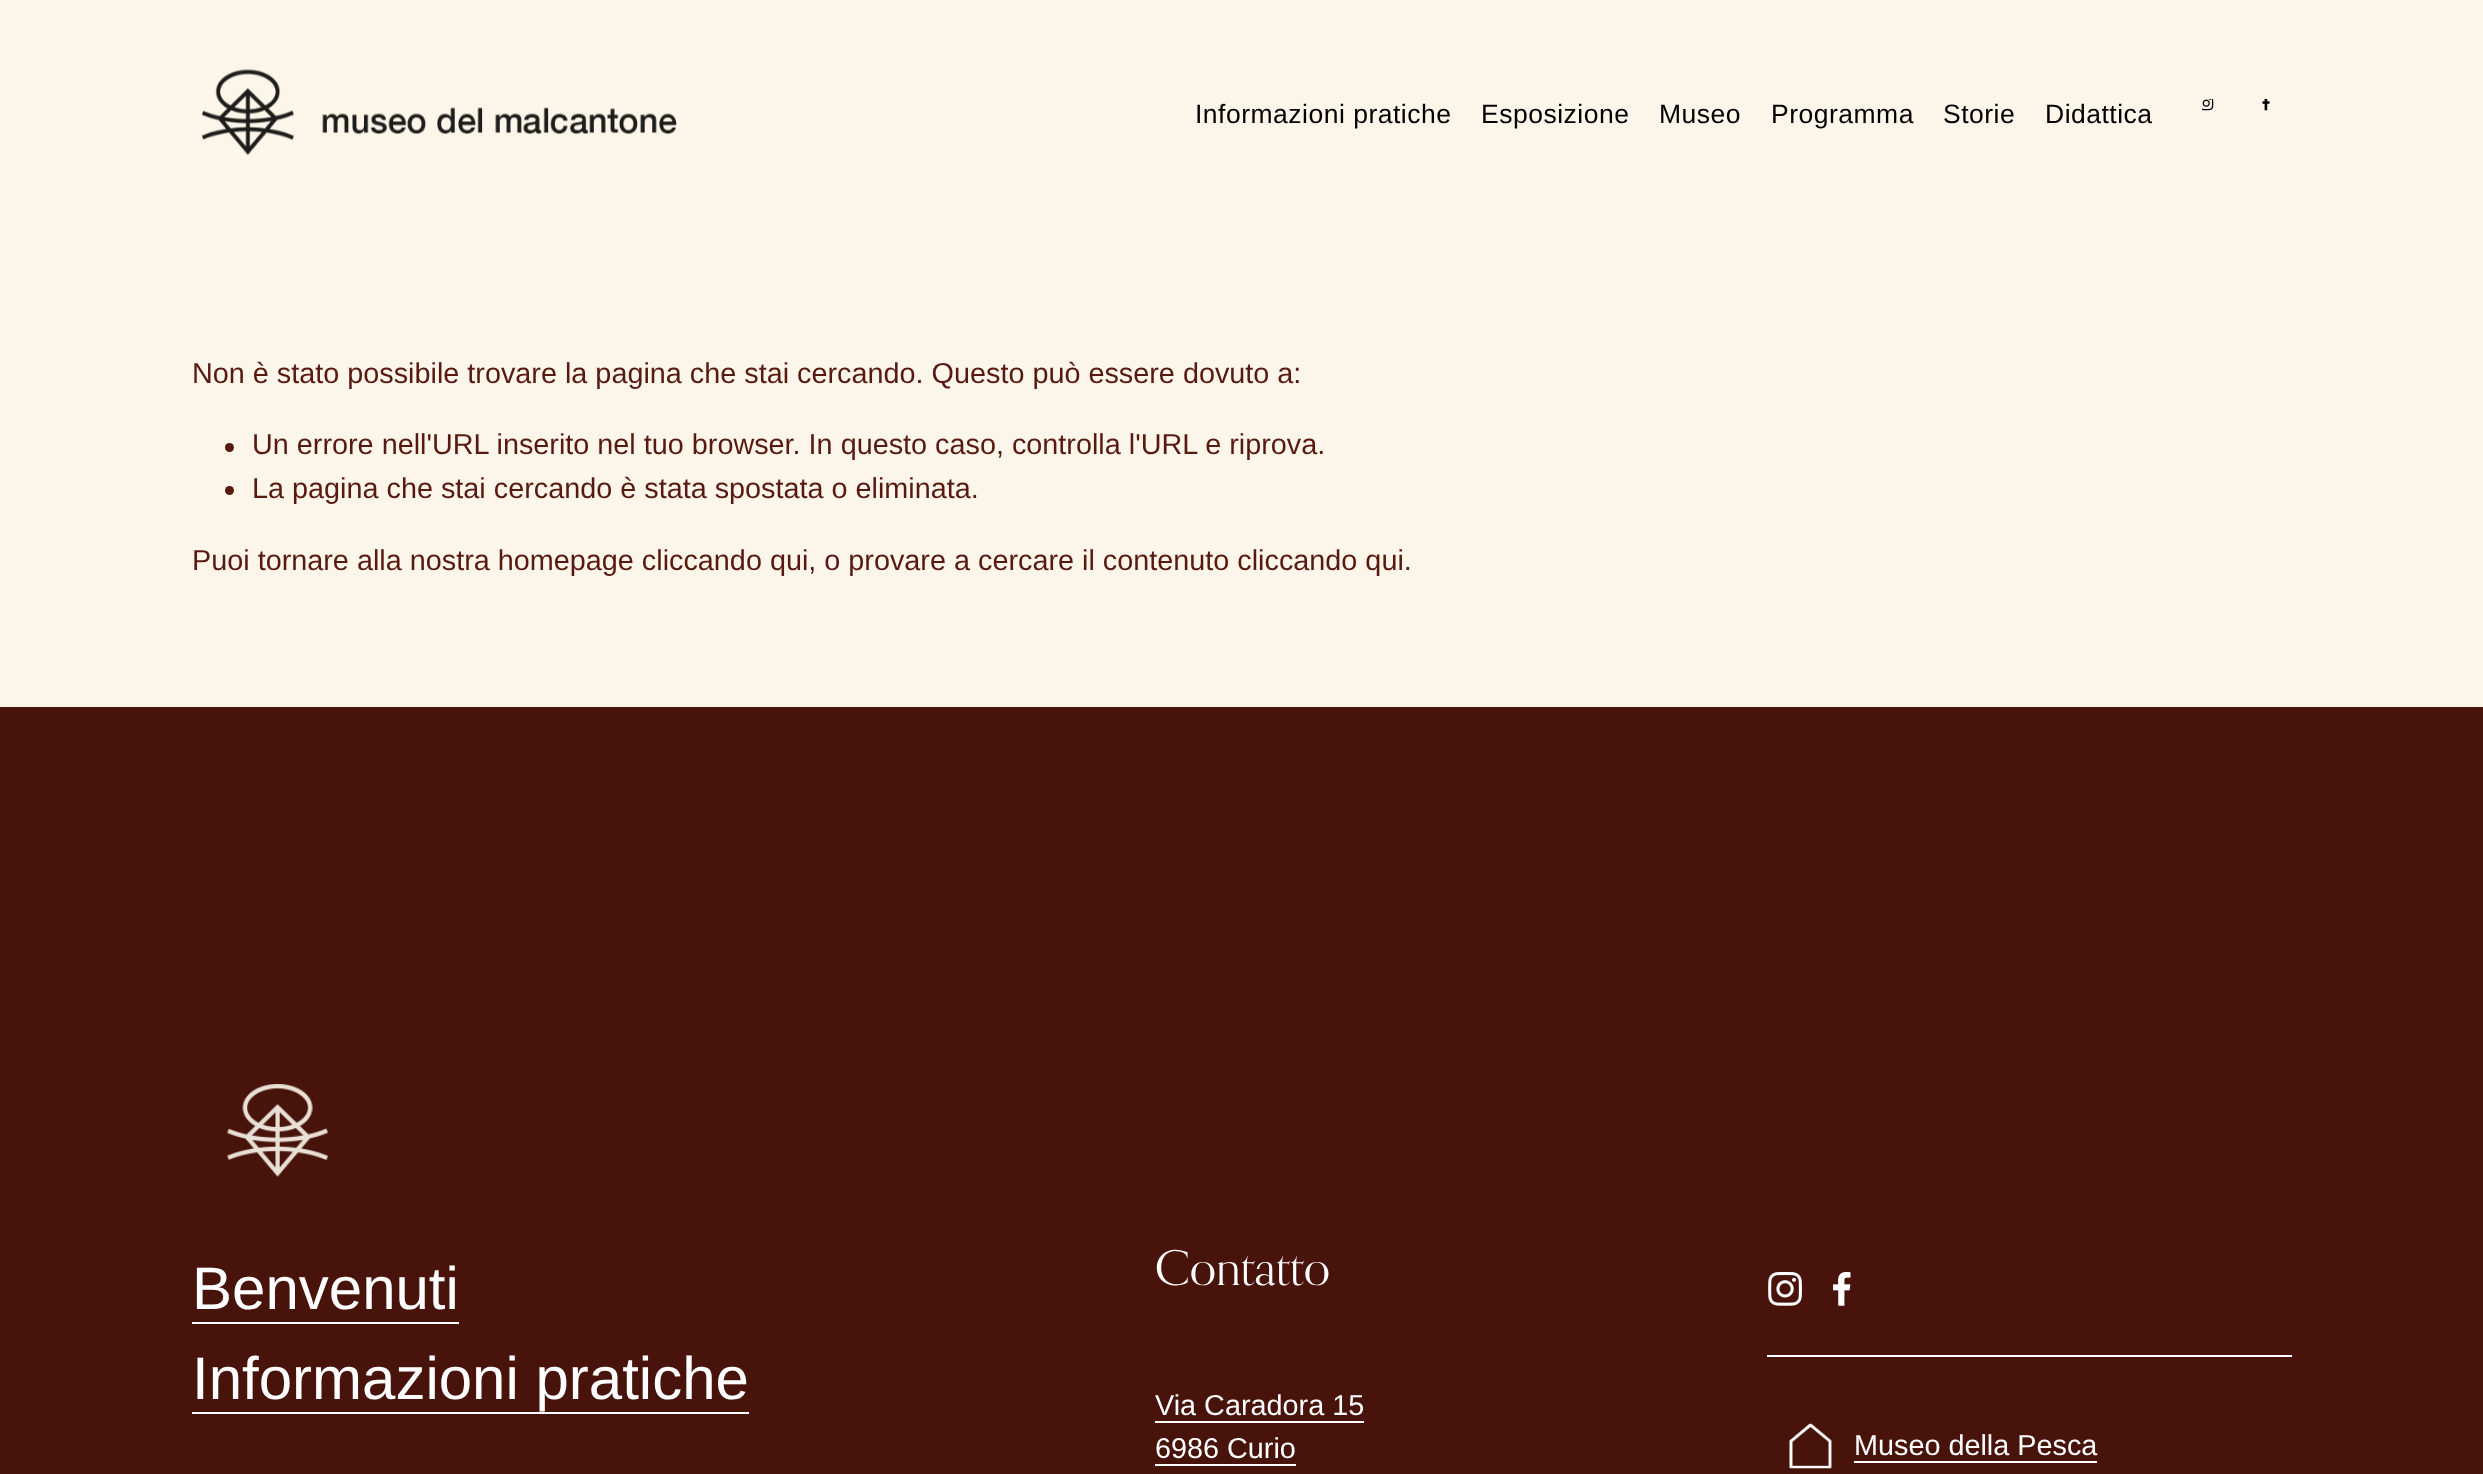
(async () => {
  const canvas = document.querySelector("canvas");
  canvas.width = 2483;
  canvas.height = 1474;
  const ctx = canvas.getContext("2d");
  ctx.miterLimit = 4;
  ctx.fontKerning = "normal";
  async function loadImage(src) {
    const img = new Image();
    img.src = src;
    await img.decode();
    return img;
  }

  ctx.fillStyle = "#fcf5e9";
  ctx.fillRect(0, 0, 2483, 1474);
  ctx.drawImage(await loadImage("img/1.png"), 202, 69, 475, 87);
  ctx.drawImage(await loadImage("img/2.png"), 2202, 99, 12, 12);
  ctx.drawImage(await loadImage("img/3.png"), 2262, 99, 8, 12);
  ctx.fillStyle = "#581910";
  ctx.beginPath();
  ctx.arc(229.5, 447.5, 4.5, 0, Math.PI * 2);
  ctx.fill();
  ctx.beginPath();
  ctx.arc(229.5, 490.5, 4.5, 0, Math.PI * 2);
  ctx.fill();
  ctx.fillStyle = "#47130b";
  ctx.fillRect(0, 707, 2483, 767);
  ctx.drawImage(await loadImage("img/4.png"), 227, 1084, 101, 93);
  for (const [x, y, w, h, color] of [
    [192, 1322, 267, 2, "#ffffff"],
    [192, 1412, 557, 2, "#ffffff"],
    [1155, 1421, 209, 2, "#ffffff"],
    [1155, 1464, 141, 2, "#ffffff"],
  ]) {
    ctx.fillStyle = color;
    ctx.fillRect(x, y, w, h);
  }
  ctx.drawImage(await loadImage("img/5.png"), 1768, 1272, 34, 34);
  ctx.drawImage(await loadImage("img/6.png"), 1833, 1272, 18, 34);
  ctx.fillRect(1767, 1355, 525, 2);
  ctx.drawImage(await loadImage("img/7.png"), 1789, 1423, 43, 46);
  ctx.fillRect(1854, 1461, 243, 2);
  ctx.letterSpacing = "0.5px";
  ctx.font = "26.5px Liberation Sans";
  ctx.fillStyle = "#000000";
  for (const [text, x, y] of [
    ["Informazioni pratiche", 1195, 123],
    ["Esposizione", 1481, 123],
    ["Museo", 1659, 123],
    ["Programma", 1771, 123],
    ["Storie", 1943, 123],
    ["Didattica", 2045, 123],
  ]) {
    ctx.fillText(text, x, y);
  }
  ctx.letterSpacing = "0px";
  ctx.font = "28.8px Liberation Sans";
  ctx.fillStyle = "#581910";
  for (const [text, x, y] of [
    ["Non è stato possibile trovare la pagina che stai cercando. Questo può essere dovuto a:", 192, 383],
    ["Un errore nell'URL inserito nel tuo browser. In questo caso, controlla l'URL e riprova.", 252, 454],
    ["La pagina che stai cercando è stata spostata o eliminata.", 252, 498],
    ["Puoi tornare alla nostra homepage cliccando qui, o provare a cercare il contenuto cliccando qui.", 192, 570],
  ]) {
    ctx.fillText(text, x, y);
  }
  ctx.font = "60px Liberation Sans";
  ctx.fillStyle = "#ffffff";
  ctx.fillText("Benvenuti", 192, 1309);
  ctx.fillText("Informazioni pratiche", 192, 1399);
  ctx.font = "48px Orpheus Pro";
  ctx.fillText("Contatto", 1155, 1285);
  ctx.font = "28.8px Liberation Sans";
  for (const [text, x, y] of [
    ["Via Caradora 15", 1155, 1415],
    ["6986 Curio", 1155, 1458],
    ["Museo della Pesca", 1854, 1455],
  ]) {
    ctx.fillText(text, x, y);
  }
})();
